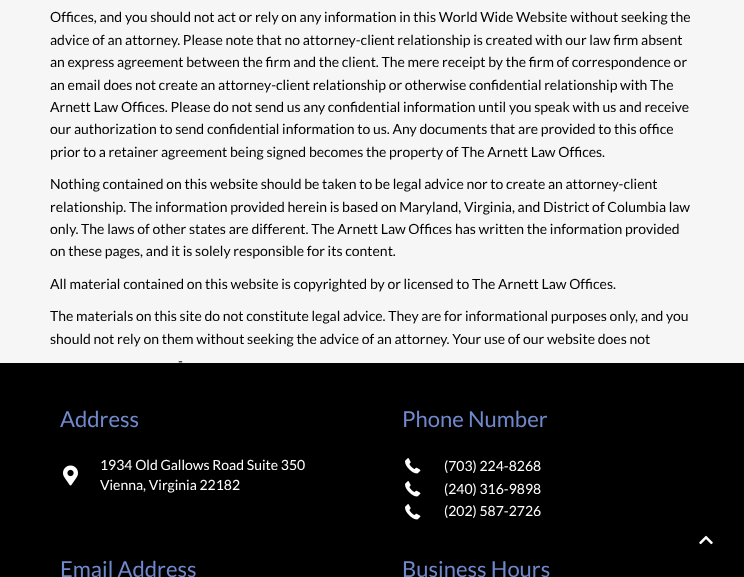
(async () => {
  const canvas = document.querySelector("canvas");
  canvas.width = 744;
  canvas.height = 577;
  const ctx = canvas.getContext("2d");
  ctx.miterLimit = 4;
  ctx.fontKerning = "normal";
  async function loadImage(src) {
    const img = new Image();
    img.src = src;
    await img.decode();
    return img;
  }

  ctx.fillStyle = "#f6f6f6";
  ctx.fillRect(0, 0, 744, 577);
  ctx.fillStyle = "#000000";
  ctx.fillRect(0, 363, 744, 214);
  ctx.drawImage(await loadImage("img/1.png"), 63, 465, 15, 21);
  ctx.drawImage(await loadImage("img/2.png"), 405, 458, 16, 16);
  ctx.drawImage(await loadImage("img/2.png"), 405, 481, 16, 16);
  ctx.drawImage(await loadImage("img/2.png"), 405, 504, 16, 16);
  ctx.drawImage(await loadImage("img/3.png"), 699, 535, 14, 10);
  ctx.font = "14px Lato";
  for (const [text, x, y] of [
    ["Offices, and you should not act or rely on any information in this World Wide Website without seeking the", 50, 22],
    ["advice of an attorney. Please note that no attorney-client relationship is created with our law firm absent", 50, 45],
    ["an express agreement between the firm and the client. The mere receipt by the firm of correspondence or", 50, 67],
    ["an email does not create an attorney-client relationship or otherwise confidential relationship with The", 50, 90],
    ["Arnett Law Offices. Please do not send us any confidential information until you speak with us and receive", 50, 112],
    ["our authorization to send confidential information to us. Any documents that are provided to this office", 50, 134],
    ["prior to a retainer agreement being signed becomes the property of The Arnett Law Offices.", 50, 157],
    ["Nothing contained on this website should be taken to be legal advice nor to create an attorney-client", 50, 189],
    ["relationship. The information provided herein is based on Maryland, Virginia, and District of Columbia law", 50, 212],
    ["only. The laws of other states are different. The Arnett Law Offices has written the information provided", 50, 234],
    ["on these pages, and it is solely responsible for its content.", 50, 256],
    ["All material contained on this website is copyrighted by or licensed to The Arnett Law Offices.", 50, 289],
    ["The materials on this site do not constitute legal advice. They are for informational purposes only, and you", 50, 321],
    ["should not rely on them without seeking the advice of an attorney. Your use of our website does not", 50, 344],
    ["-", 178, 366],
  ]) {
    ctx.fillText(text, x, y);
  }
  ctx.font = "22px Lato";
  ctx.fillStyle = "#7089cc";
  ctx.fillText("Address", 60, 427);
  ctx.font = "14px Lato";
  ctx.fillStyle = "#ffffff";
  ctx.fillText("1934 Old Gallows Road Suite 350", 100, 470);
  ctx.fillText("Vienna, Virginia 22182", 100, 490);
  ctx.font = "22px Lato";
  ctx.fillStyle = "#7089cc";
  ctx.fillText("Phone Number", 402, 427);
  ctx.font = "14px Lato";
  ctx.fillStyle = "#ffffff";
  for (const [text, x, y] of [
    ["(703) 224-8268", 444, 471],
    ["(240) 316-9898", 444, 494],
    ["(202) 587-2726", 444, 516],
  ]) {
    ctx.fillText(text, x, y);
  }
  ctx.font = "22px Lato";
  ctx.fillStyle = "#7089cc";
  ctx.fillText("Email Address", 60, 577);
  ctx.fillText("Business Hours", 402, 577);
})();
